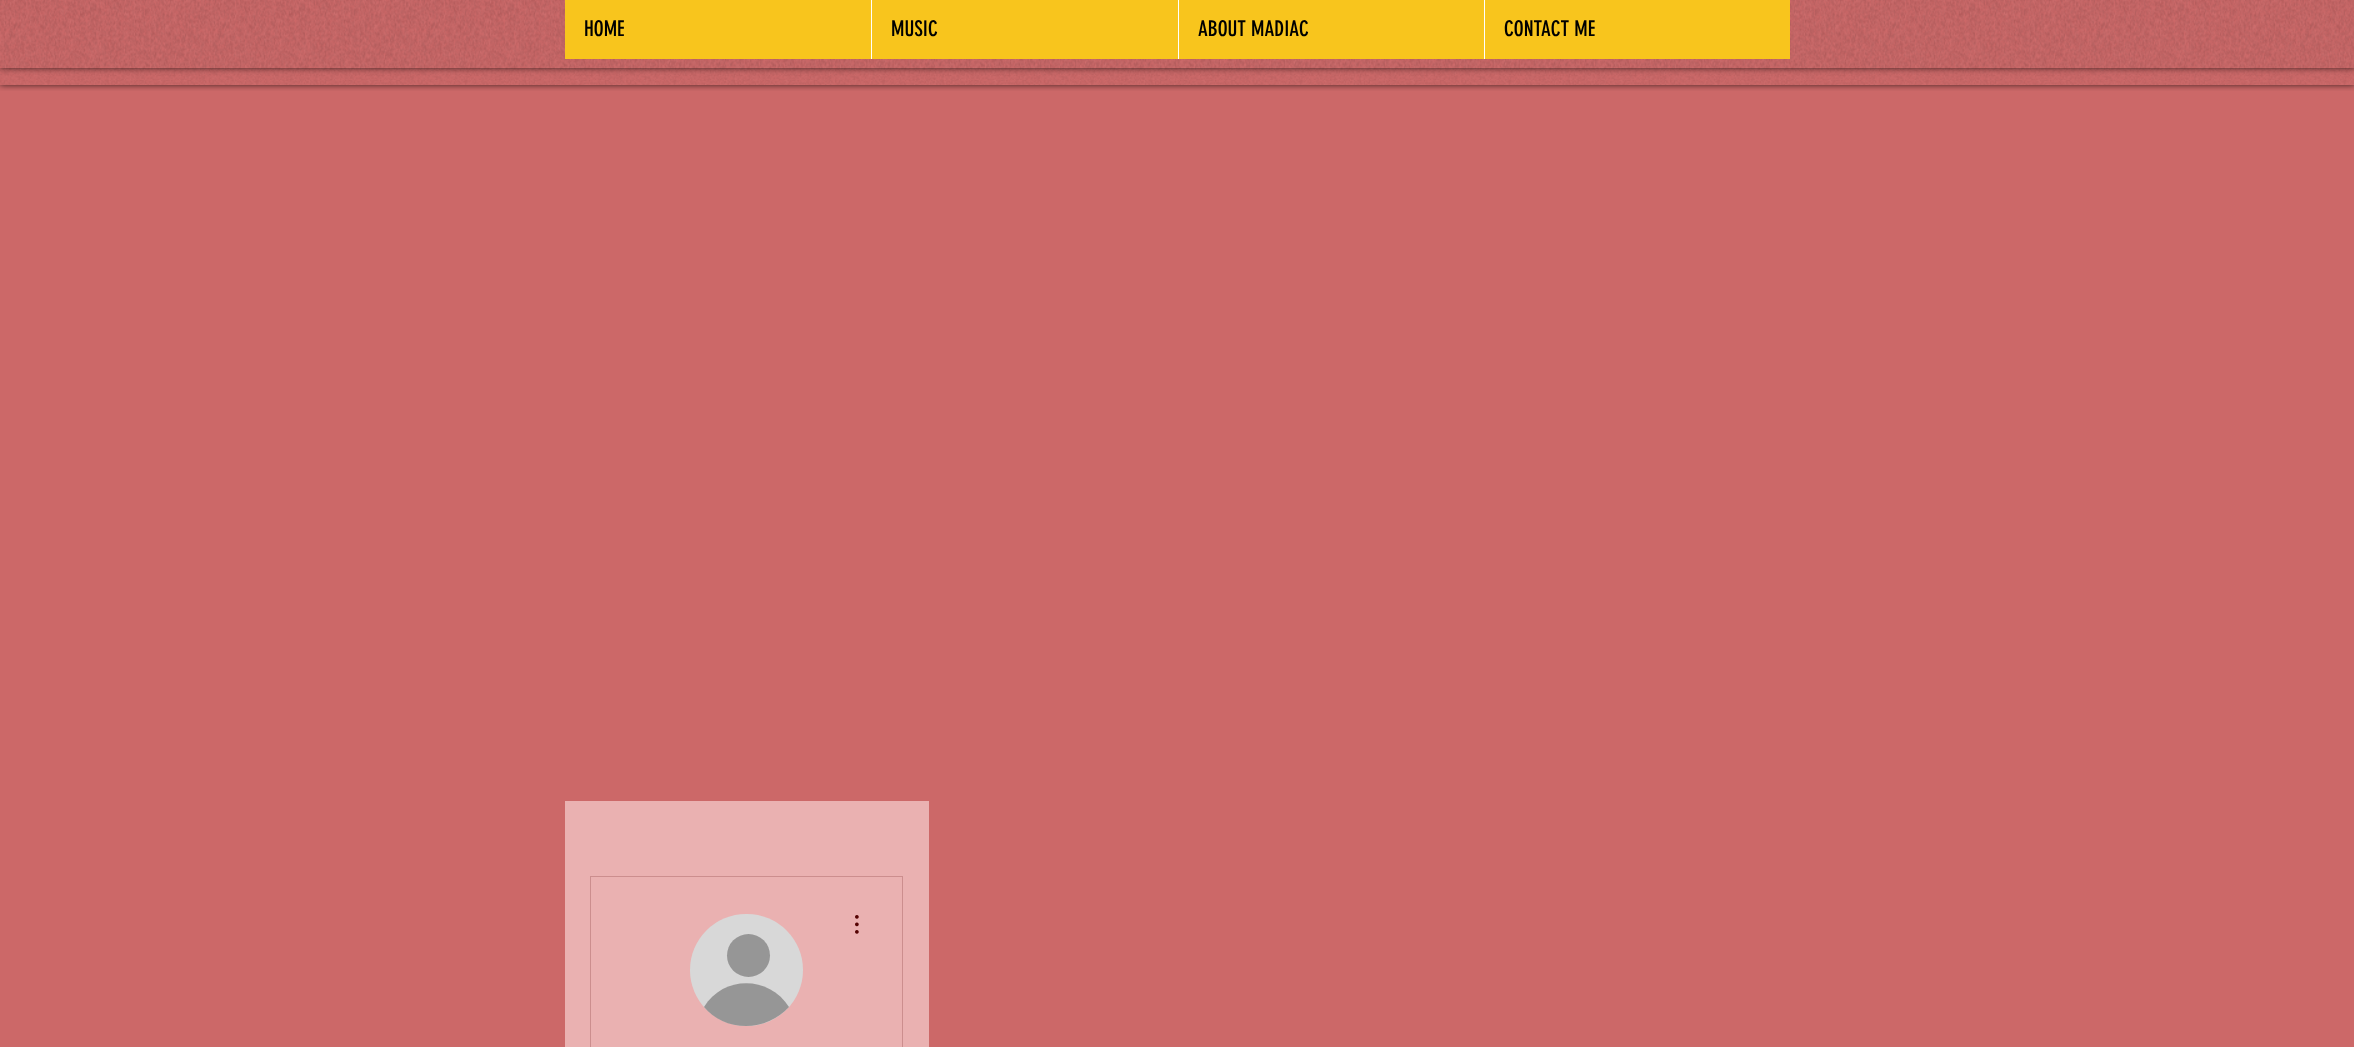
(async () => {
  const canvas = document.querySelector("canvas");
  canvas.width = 2354;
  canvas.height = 1047;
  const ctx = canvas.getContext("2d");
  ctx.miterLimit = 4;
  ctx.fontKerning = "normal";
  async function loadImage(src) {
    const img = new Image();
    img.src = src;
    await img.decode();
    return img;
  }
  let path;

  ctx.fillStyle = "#cc6868";
  ctx.fillRect(0, 0, 2354, 1047);
  ctx.save();
  path = new Path2D("M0 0H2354V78H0ZM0-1H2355V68H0Z");
  ctx.clip(path, "evenodd");
  ctx.fillStyle = "rgba(0, 0, 0, 0.7)";
  ctx.filter = "blur(3px)";
  ctx.beginPath();
  ctx.rect(0, -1, 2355, 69);
  ctx.fill();
  ctx.filter = "none";
  ctx.restore();
  ctx.drawImage(await loadImage("img/1.png"), 0, 0, 2354, 68);
  ctx.save();
  ctx.beginPath();
  ctx.rect(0, 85, 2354, 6);
  ctx.clip();
  ctx.fillStyle = "rgba(0, 0, 0, 0.7)";
  ctx.filter = "blur(3px)";
  ctx.beginPath();
  ctx.rect(0, 0, 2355, 85);
  ctx.fill();
  ctx.filter = "none";
  ctx.restore();
  ctx.drawImage(await loadImage("img/2.png"), 0, 0, 2354, 85);
  for (const [x, y, w, h, color] of [
    [565, 0, 1225, 59, "#f8c51d"],
    [871, 0, 1, 59, "#ffffff"],
    [1178, 0, 1, 59, "#ffffff"],
    [1484, 0, 1, 59, "#ffffff"],
    [565, 801, 364, 246, "#eab1b1"],
  ]) {
    ctx.fillStyle = color;
    ctx.fillRect(x, y, w, h);
  }
  ctx.strokeStyle = "#cc8e8e";
  ctx.strokeRect(590.5, 876.5, 312, 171);
  ctx.fillStyle = "#d8d8d8";
  ctx.beginPath();
  ctx.roundRect(690, 914, 113, 112, 56);
  ctx.fill();
  ctx.fillStyle = "#969696";
  ctx.beginPath();
  ctx.arc(748.5, 955.5, 21.5, 0, Math.PI * 2);
  ctx.fill();
  path = new Path2D("M746 1026C762 1026 778 1019 789 1007C769 976 724 975 704 1007C714 1019 729 1026 746 1026Z");
  ctx.fill(path);
  ctx.drawImage(await loadImage("img/3.png"), 855, 915, 4, 19);
  ctx.font = "21.25px 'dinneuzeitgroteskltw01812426'";
  ctx.fillStyle = "#000000";
  for (const [text, x, y] of [
    ["HOME", 584, 36],
    ["MUSIC", 891, 36],
    ["ABOUT MADIAC", 1198, 36],
    ["CONTACT ME", 1504, 36],
  ]) {
    ctx.fillText(text, x, y);
  }
})();
